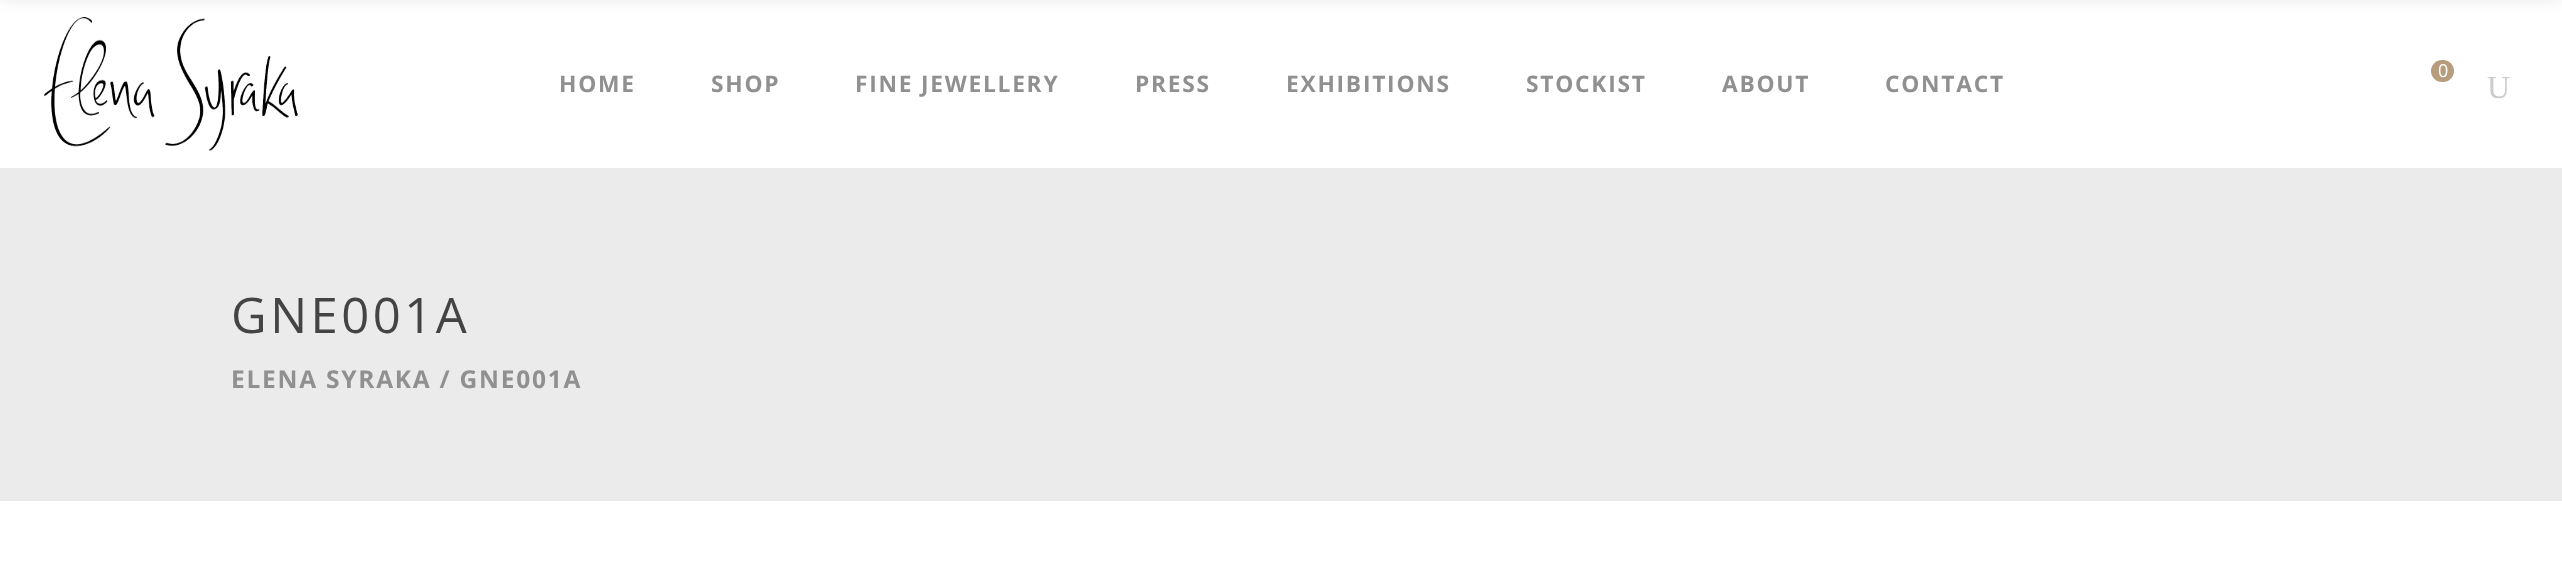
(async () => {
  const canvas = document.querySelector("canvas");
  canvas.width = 2562;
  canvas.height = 563;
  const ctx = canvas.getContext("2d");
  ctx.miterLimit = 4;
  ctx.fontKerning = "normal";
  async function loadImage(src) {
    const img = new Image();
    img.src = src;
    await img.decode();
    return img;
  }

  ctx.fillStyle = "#ffffff";
  ctx.fillRect(0, 0, 2562, 563);
  ctx.drawImage(await loadImage("img/1.png"), 44, 17, 254, 134);
  ctx.fillStyle = "rgba(0, 0, 0, 0.09)";
  ctx.filter = "blur(7px)";
  ctx.beginPath();
  ctx.rect(0, -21, 2562, 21);
  ctx.fill();
  ctx.filter = "none";
  ctx.fillStyle = "#b79c7d";
  ctx.beginPath();
  ctx.roundRect(2431, 60, 23, 22, 11);
  ctx.fill();
  ctx.fillStyle = "#ebebeb";
  ctx.fillRect(0, 168, 2562, 333);
  ctx.letterSpacing = "1.75px";
  ctx.font = "bold 22.75px Open Sans";
  ctx.fillStyle = "#909090";
  for (const [text, x, y] of [
    ["HOME", 559, 92],
    ["SHOP", 711, 92],
    ["FINE JEWELLERY", 855, 92],
    ["PRESS", 1135, 92],
    ["EXHIBITIONS", 1286, 92],
    ["STOCKIST", 1526, 92],
    ["ABOUT", 1722, 92],
    ["CONTACT", 1885, 92],
  ]) {
    ctx.fillText(text, x, y);
  }
  ctx.letterSpacing = "0px";
  ctx.font = "18px Open Sans";
  ctx.fillStyle = "#ffffff";
  ctx.fillText("0", 2438, 77);
  ctx.font = "32px Liberation Serif";
  ctx.fillStyle = "#cccccc";
  ctx.fillText("U", 2487, 98);
  ctx.letterSpacing = "3.5px";
  ctx.font = "49px Open Sans";
  ctx.fillStyle = "#444444";
  ctx.fillText("GNE001A", 231, 333);
  ctx.letterSpacing = "1.75px";
  ctx.font = "bold 24.5px Open Sans";
  ctx.fillStyle = "#909090";
  ctx.fillText("ELENA SYRAKA / GNE001A", 231, 388);
})();
